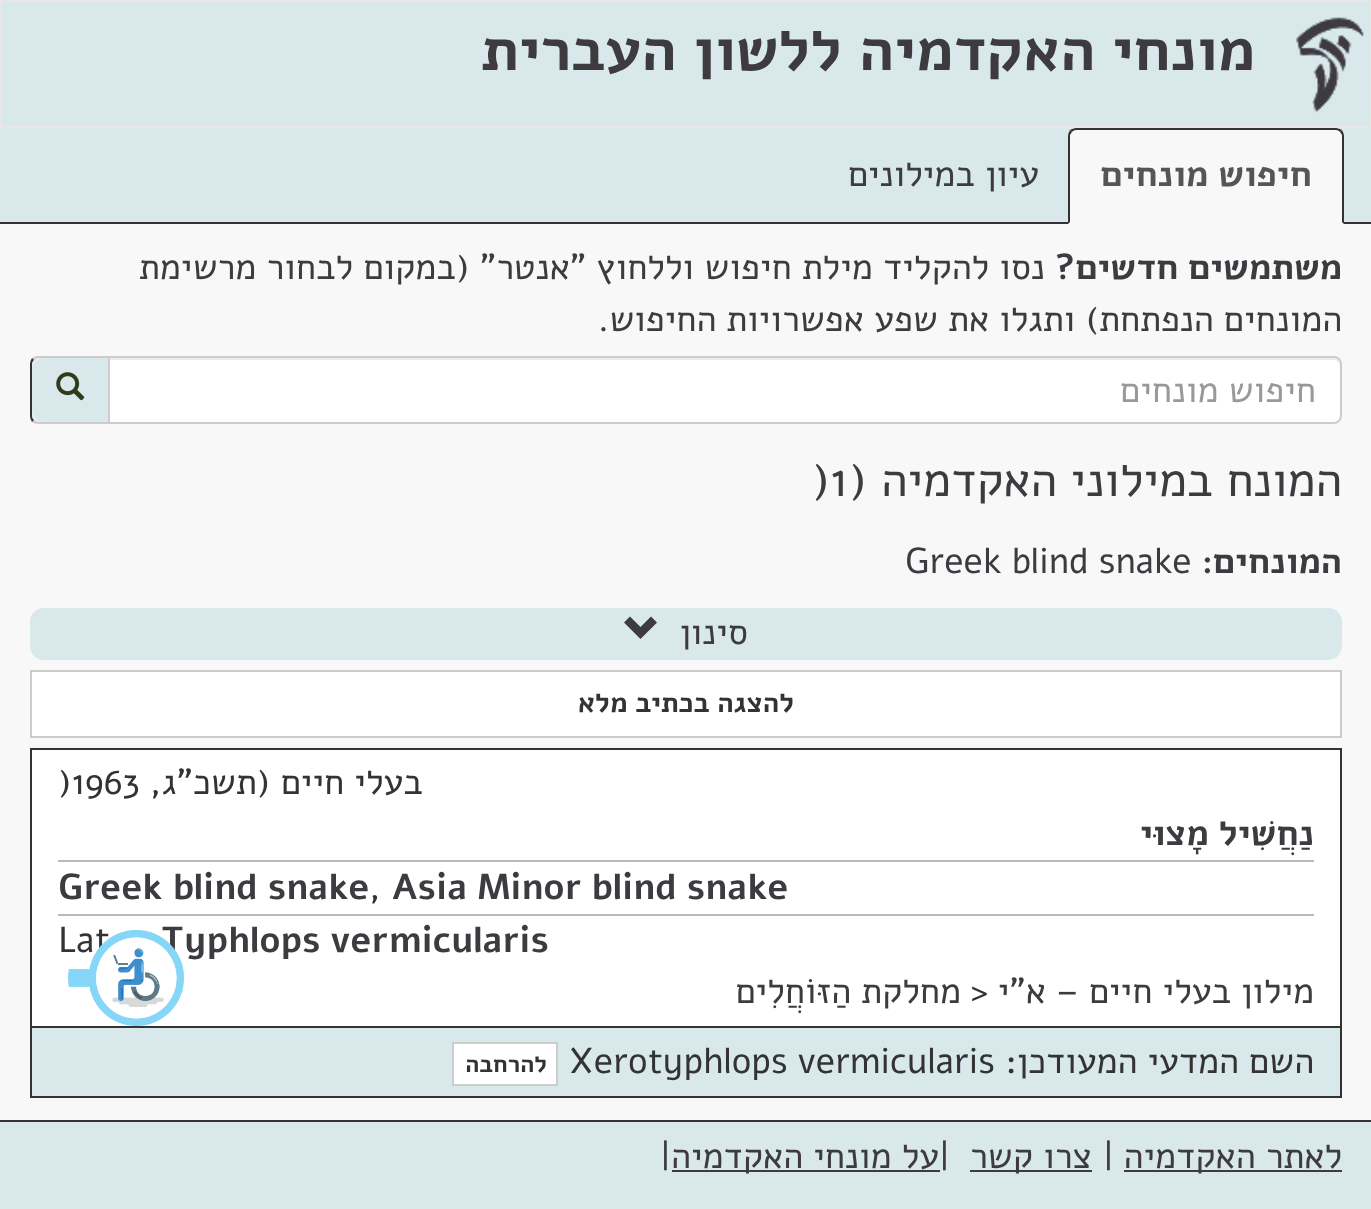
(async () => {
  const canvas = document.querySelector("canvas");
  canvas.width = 1371;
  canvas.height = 1209;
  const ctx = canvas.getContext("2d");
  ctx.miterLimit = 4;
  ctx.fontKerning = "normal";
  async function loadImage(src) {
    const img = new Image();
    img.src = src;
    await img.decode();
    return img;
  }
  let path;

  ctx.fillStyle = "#f8f8f8";
  ctx.fillRect(0, 0, 1371, 1209);
  ctx.fillStyle = "#d9e8eb";
  ctx.beginPath();
  ctx.rect(1, 1, 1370, 126);
  ctx.fill();
  ctx.strokeStyle = "#e7e7e7";
  ctx.lineWidth = 2;
  ctx.stroke();
  ctx.drawImage(await loadImage("img/1.png"), 1296, 17, 68, 96);
  ctx.fillRect(0, 128, 1371, 94);
  ctx.fillStyle = "#333333";
  ctx.fillRect(0, 222, 1371, 2);
  ctx.fillStyle = "#f8f8f8";
  ctx.beginPath();
  ctx.roundRect(1068, 128, 276, 96, [8, 8, 0, 0]);
  ctx.fill();
  ctx.fillStyle = "#333333";
  path = new Path2D("M1076 128C1074 128 1072 129 1070 130L1072 132C1073 131 1074 130 1076 130H1336C1338 130 1339 131 1340 132L1342 130C1340 129 1338 128 1336 128Z");
  ctx.fill(path);
  path = new Path2D("M1344 224V136C1344 134 1343 132 1342 130L1340 132L1342 135V222Z");
  ctx.fill(path);
  path = new Path2D("M1068 224L1070 222V135L1072 132L1070 130C1069 132 1068 134 1068 136Z");
  ctx.fill(path);
  ctx.fillStyle = "#ffffff";
  ctx.beginPath();
  ctx.roundRect(108, 356, 1234, 68, [0, 8, 8, 0]);
  ctx.fill();
  ctx.fillStyle = "#ececec";
  path = new Path2D("M110 360H1334C1337 360 1340 363 1340 366V364C1340 361 1337 358 1334 358H110Z");
  ctx.fill(path);
  ctx.beginPath();
  ctx.roundRect(109, 357, 1232, 66, [0, 7, 7, 0]);
  ctx.strokeStyle = "#cccccc";
  ctx.stroke();
  ctx.fillStyle = "#eeeeee";
  ctx.beginPath();
  ctx.roundRect(30, 356, 78, 68, [8, 0, 0, 8]);
  ctx.fill();
  ctx.fillStyle = "#cccccc";
  path = new Path2D("M38 356C36 356 34 357 32 358L34 360L37 358H108V356Z");
  ctx.fill(path);
  path = new Path2D("M108 424V422H37L34 420L32 422C34 423 36 424 38 424Z");
  ctx.fill(path);
  ctx.fillStyle = "#333333";
  path = new Path2D("M30 364V416C30 418 31 420 32 422L34 420C33 419 32 418 32 416V364C32 362 33 361 34 360L32 358C31 360 30 362 30 364Z");
  ctx.fill(path);
  ctx.fillStyle = "#d9e8eb";
  ctx.beginPath();
  ctx.roundRect(32, 358, 76, 64, [12, 0, 0, 12]);
  ctx.fill();
  ctx.drawImage(await loadImage("img/2.png"), 56, 372, 29, 29);
  ctx.beginPath();
  ctx.roundRect(30, 608, 1312, 52, 14);
  ctx.fill();
  ctx.fillStyle = "#3e3b40";
  path = new Path2D("M657 622.5L640.5 639L624 622.5L630 616.5L640.5 627L651 616.5Z");
  ctx.fill(path);
  ctx.fillStyle = "#ffffff";
  ctx.beginPath();
  ctx.rect(31, 671, 1310, 66);
  ctx.fill();
  ctx.stroke();
  ctx.beginPath();
  ctx.rect(31, 749, 1310, 278);
  ctx.fill();
  ctx.strokeStyle = "#333333";
  ctx.stroke();
  for (const [x, y, w, h, color] of [
    [58, 860, 1256, 2, "#b9b9b9"],
    [58, 914, 1256, 2, "#b9b9b9"],
    [32, 1028, 1308, 68, "#d9e8eb"],
    [1340, 1028, 2, 70, "#333333"],
    [30, 1096, 1312, 2, "#333333"],
    [30, 1028, 2, 70, "#333333"],
  ]) {
    ctx.fillStyle = color;
    ctx.fillRect(x, y, w, h);
  }
  ctx.fillStyle = "#ffffff";
  ctx.beginPath();
  ctx.rect(453, 1043, 104, 42);
  ctx.fill();
  ctx.strokeStyle = "#cccccc";
  ctx.stroke();
  for (const [x, y, w, h, color] of [
    [0, 1122, 1371, 87, "#d9e8eb"],
    [0, 1120, 1371, 2, "#333333"],
    [1124, 1170, 218, 2, "#3e3b40"],
    [970, 1170, 122, 2, "#3e3b40"],
    [672, 1170, 268, 2, "#3e3b40"],
  ]) {
    ctx.fillStyle = color;
    ctx.fillRect(x, y, w, h);
  }
  ctx.direction = "rtl";
  ctx.font = "bold 60px Alef";
  ctx.fillText("מונחי האקדמיה", 1255, 70);
  ctx.fillText("ללשון העברית", 842, 70);
  ctx.font = "bold 36px Alef";
  ctx.fillStyle = "#555555";
  ctx.fillText("חיפוש מונחים", 1312, 186);
  ctx.font = "36px Alef";
  ctx.fillStyle = "#3e3b40";
  ctx.fillText("עיון במילונים", 1039, 186);
  ctx.font = "bold 36px Alef";
  ctx.fillText("משתמשים חדשים?", 1342, 279);
  ctx.font = "36px Alef";
  ctx.fillText("נסו להקליד מילת חיפוש וללחוץ \"אנטר\" (במקום לבחור מרשימת", 1045, 279);
  ctx.fillText("המונחים הנפתחת) ותגלו את שפע אפשרויות החיפוש.", 1342, 331);
  ctx.fillStyle = "#999999";
  ctx.fillText("חיפוש מונחים", 1316, 402);
  ctx.font = "48px Alef";
  ctx.fillStyle = "#3e3b40";
  ctx.fillText("המונח במילוני האקדמיה (", 1342, 496);
  ctx.direction = "ltr";
  ctx.fillText(")1", 812, 496);
  ctx.direction = "rtl";
  ctx.font = "bold 36px Alef";
  ctx.fillText("המונחים:", 1342, 573);
  ctx.direction = "ltr";
  ctx.font = "36px Alef";
  ctx.fillText("Greek blind snake", 905, 573);
  ctx.direction = "rtl";
  ctx.fillText("סינון", 748, 644);
  ctx.font = "bold 28px Alef";
  ctx.fillStyle = "#333333";
  ctx.fillText("להצגה בכתיב מלא", 794, 712);
  ctx.font = "36px Alef";
  ctx.fillText("בעלי חיים (תשכ\"ג,", 423, 794);
  ctx.direction = "ltr";
  ctx.fillText(")1963", 58, 794);
  ctx.direction = "rtl";
  ctx.font = "bold 36px Alef";
  ctx.fillStyle = "#3e3b40";
  ctx.fillText("נַחֲשִׁיל מָצוּי", 1314, 845);
  ctx.direction = "ltr";
  ctx.fillText("Asia Minor blind snake", 392, 899);
  ctx.font = "36px Alef";
  ctx.fillStyle = "#333333";
  ctx.fillText(",", 369, 899);
  ctx.font = "bold 36px Alef";
  ctx.fillStyle = "#3e3b40";
  ctx.fillText("Greek blind snake", 58, 899);
  ctx.fillText("Typhlops vermicularis", 161, 952);
  ctx.font = "36px Alef";
  ctx.fillStyle = "#333333";
  ctx.fillText("Lat", 58, 952);
  ctx.direction = "rtl";
  ctx.fillStyle = "#3e3b40";
  ctx.fillText("מילון בעלי חיים – א\"י", 1314, 1003);
  ctx.direction = "ltr";
  ctx.fillStyle = "#333333";
  ctx.fillText(">", 971, 1003);
  ctx.direction = "rtl";
  ctx.fillStyle = "#3e3b40";
  ctx.fillText("מחלקת הַזּוֹחֲלִים", 961, 1003);
  ctx.fillStyle = "#333333";
  ctx.fillText("השם המדעי המעודכן:", 1314, 1073);
  ctx.direction = "ltr";
  ctx.fillText("Xerotyphlops vermicularis", 569, 1073);
  ctx.direction = "rtl";
  ctx.font = "bold 24px Alef";
  ctx.fillText("להרחבה", 547, 1072);
  ctx.font = "36px Alef";
  ctx.fillStyle = "#3e3b40";
  ctx.fillText("לאתר האקדמיה", 1342, 1168);
  ctx.direction = "ltr";
  ctx.fillText("|", 1103, 1168);
  ctx.direction = "rtl";
  ctx.fillText("צרו קשר", 1092, 1168);
  ctx.direction = "ltr";
  ctx.fillText("|", 939, 1168);
  ctx.direction = "rtl";
  ctx.fillText("על מונחי האקדמיה", 939, 1168);
  ctx.direction = "ltr";
  ctx.fillText("|", 660, 1168);
  ctx.drawImage(await loadImage("img/3.png"), 68, 930, 116, 96);
})();
